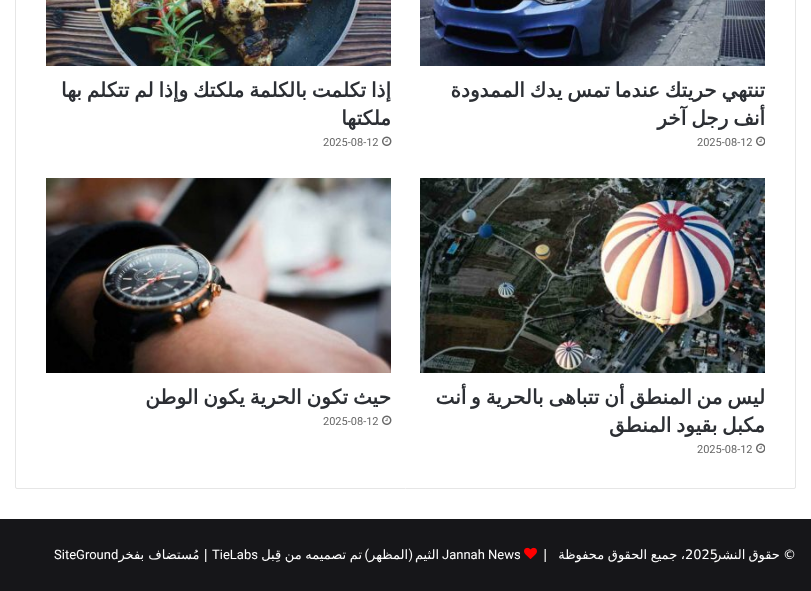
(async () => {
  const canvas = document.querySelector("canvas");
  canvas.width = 811;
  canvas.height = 591;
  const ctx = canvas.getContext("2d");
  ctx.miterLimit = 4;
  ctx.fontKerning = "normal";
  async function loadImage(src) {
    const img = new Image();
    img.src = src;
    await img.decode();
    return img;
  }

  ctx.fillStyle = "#ffffff";
  ctx.fillRect(0, 0, 811, 591);
  ctx.beginPath();
  ctx.roundRect(15.5, -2.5, 780, 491, 1.5);
  ctx.strokeStyle = "#e6e6e6";
  ctx.stroke();
  ctx.drawImage(await loadImage("img/1.png"), 420, 0, 345, 66);
  ctx.drawImage(await loadImage("img/2.png"), 756, 136, 9, 10);
  ctx.drawImage(await loadImage("img/3.png"), 46, 0, 345, 66);
  ctx.drawImage(await loadImage("img/4.png"), 382, 136, 10, 10);
  ctx.drawImage(await loadImage("img/5.png"), 420, 178, 345, 195);
  ctx.drawImage(await loadImage("img/2.png"), 756, 443, 9, 10);
  ctx.drawImage(await loadImage("img/6.png"), 46, 178, 345, 195);
  ctx.drawImage(await loadImage("img/4.png"), 382, 415, 10, 10);
  ctx.fillStyle = "#161619";
  ctx.fillRect(0, 519, 811, 72);
  ctx.drawImage(await loadImage("img/7.png"), 524, 547, 13, 12);
  ctx.save();
  ctx.beginPath();
  ctx.rect(46, 0, 719, 478);
  ctx.clip();
  ctx.wordSpacing = "-1.5px";
  ctx.direction = "rtl";
  ctx.font = "bold 20px DejaVu Sans";
  ctx.fillStyle = "#2c2f34";
  ctx.fillText("تنتهي حريتك عندما تمس يدك الممدودة", 765, 97);
  ctx.fillText("أنف رجل آخر", 765, 125);
  ctx.restore();
  ctx.font = "11px Roboto";
  ctx.fillStyle = "#666666";
  ctx.fillText("2025-08-12", 697, 146);
  ctx.wordSpacing = "-1.5px";
  ctx.direction = "rtl";
  ctx.font = "bold 20px DejaVu Sans";
  ctx.fillStyle = "#2c2f34";
  ctx.fillText("إذا تكلمت بالكلمة ملكتك وإذا لم تتكلم بها", 391, 97);
  ctx.wordSpacing = "0px";
  ctx.fillText("ملكتها", 391, 125);
  ctx.direction = "ltr";
  ctx.font = "11px Roboto";
  ctx.fillStyle = "#666666";
  ctx.fillText("2025-08-12", 323, 146);
  ctx.save();
  ctx.beginPath();
  ctx.rect(46, 0, 719, 478);
  ctx.clip();
  ctx.wordSpacing = "-1.5px";
  ctx.direction = "rtl";
  ctx.font = "bold 20px DejaVu Sans";
  ctx.fillStyle = "#2c2f34";
  ctx.fillText("ليس من المنطق أن تتباهى بالحرية و أنت", 765, 404);
  ctx.fillText("مكبل بقيود المنطق", 765, 432);
  ctx.restore();
  ctx.fillText("2025-08-12", 697, 453);
  ctx.wordSpacing = "-1.5px";
  ctx.direction = "rtl";
  ctx.font = "bold 20px DejaVu Sans";
  ctx.fillStyle = "#2c2f34";
  ctx.fillText("حيث تكون الحرية يكون الوطن", 391, 404);
  ctx.wordSpacing = "0px";
  ctx.direction = "ltr";
  ctx.font = "11px Roboto";
  ctx.fillStyle = "#666666";
  ctx.fillText("2025-08-12", 323, 425);
  ctx.wordSpacing = "-0.5px";
  ctx.direction = "rtl";
  ctx.font = "13px DejaVu Sans";
  ctx.fillStyle = "#ffffff";
  ctx.fillText("، جميع الحقوق محفوظة   |", 685, 559);
  ctx.wordSpacing = "0px";
  ctx.direction = "ltr";
  ctx.fillText("2025", 685, 559);
  ctx.wordSpacing = "-1px";
  ctx.direction = "rtl";
  ctx.fillText("© حقوق النشر", 796, 559);
  ctx.wordSpacing = "0px";
  ctx.direction = "ltr";
  ctx.font = "13px Roboto";
  ctx.fillText("Jannah News", 442, 559);
  ctx.direction = "rtl";
  ctx.font = "13px DejaVu Sans";
  ctx.fillText("الثيم", 439, 559);
  ctx.font = "13px Roboto";
  ctx.fillText("(", 413, 559);
  ctx.fillText(")", 369, 559);
  ctx.font = "13px DejaVu Sans";
  ctx.fillText("المظهر", 408, 559);
  ctx.wordSpacing = "-0.5px";
  ctx.fillText("تم تصميمه من قِبل", 362, 559);
  ctx.wordSpacing = "0px";
  ctx.direction = "ltr";
  ctx.font = "13px Roboto";
  ctx.fillText("TieLabs", 212, 559);
  ctx.direction = "rtl";
  ctx.font = "13px DejaVu Sans";
  ctx.fillText("| مُستضاف بفخر", 208, 559);
  ctx.direction = "ltr";
  ctx.font = "13px Roboto";
  ctx.fillText("SiteGround", 54, 559);
})();
